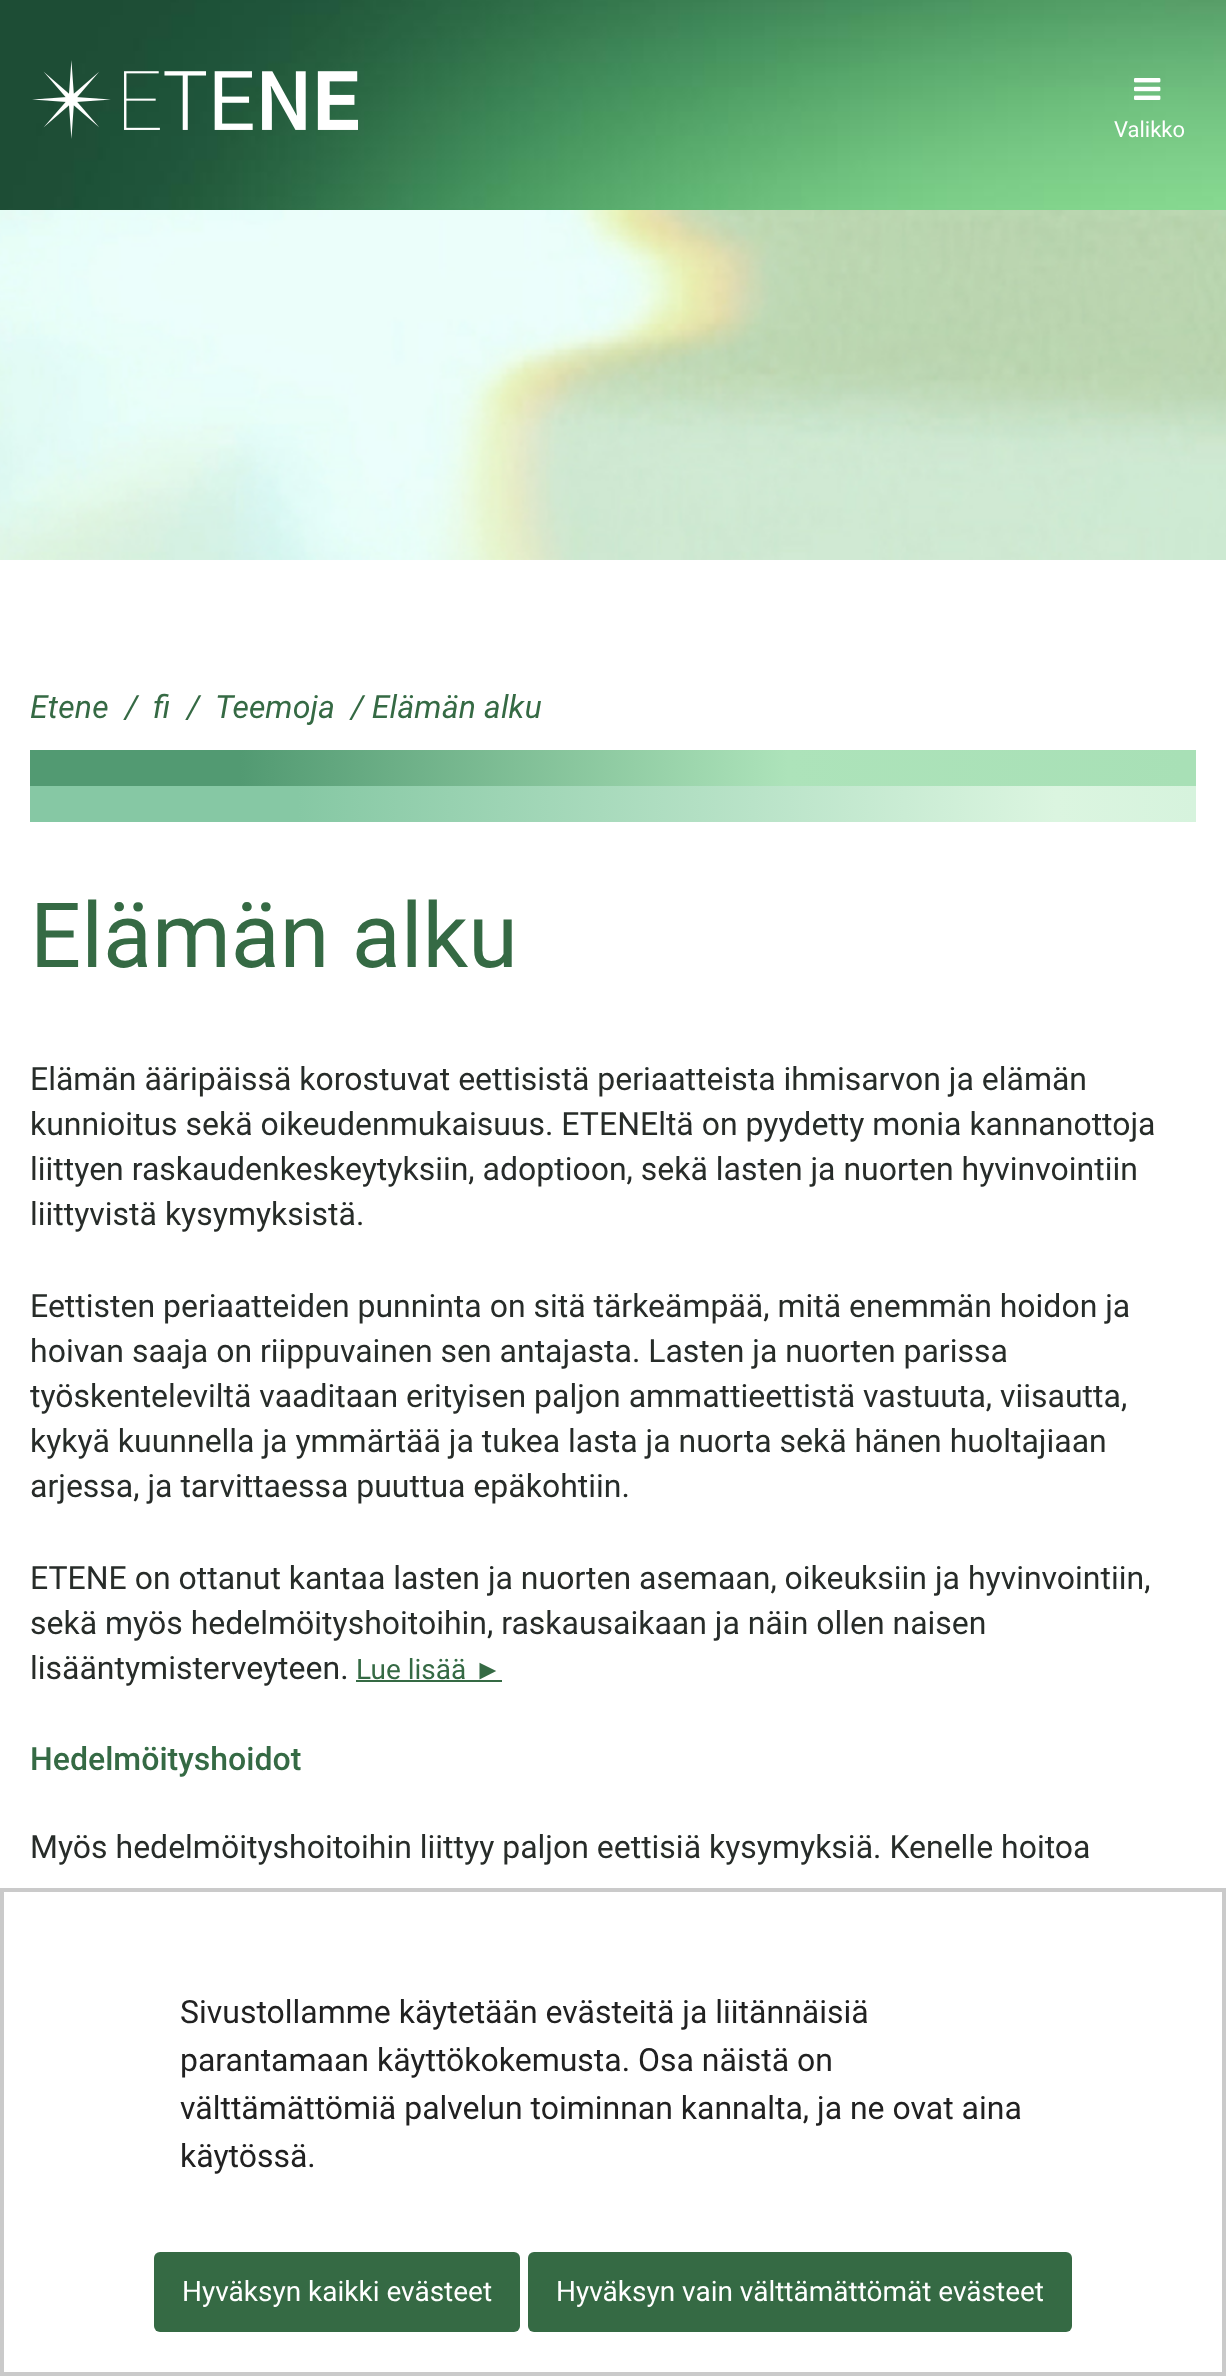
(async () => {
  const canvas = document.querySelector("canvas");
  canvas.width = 1226;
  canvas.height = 2376;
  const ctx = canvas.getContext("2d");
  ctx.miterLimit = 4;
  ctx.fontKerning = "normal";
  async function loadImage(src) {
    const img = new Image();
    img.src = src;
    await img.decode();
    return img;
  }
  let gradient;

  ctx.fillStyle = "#ffffff";
  ctx.fillRect(0, 0, 1226, 2376);
  ctx.drawImage(await loadImage("img/1.png"), 0, 0, 1226, 210);
  ctx.drawImage(await loadImage("img/2.png"), 32, 60, 326, 79);
  ctx.drawImage(await loadImage("img/3.png"), 1134, 78, 27, 22);
  ctx.drawImage(await loadImage("img/4.png"), 0, 210, 1226, 350);
  gradient = ctx.createLinearGradient(30, 768, 1196, 768);
  gradient.addColorStop(0.18, "#529a72");
  gradient.addColorStop(0.65, "#ade3ba");
  gradient.addColorStop(0.99, "#a8e0b6");
  ctx.fillStyle = gradient;
  ctx.fillRect(30, 750, 1166, 36);
  gradient = ctx.createLinearGradient(30, 804, 1196, 804);
  gradient.addColorStop(0.23, "#86c8a4");
  gradient.addColorStop(0.88, "#dbf5e0");
  gradient.addColorStop(1, "#d6f3dd");
  ctx.fillStyle = gradient;
  ctx.fillRect(30, 786, 1166, 36);
  ctx.fillStyle = "#356a44";
  ctx.fillRect(356, 1680, 146, 2);
  ctx.strokeStyle = "#cacaca";
  ctx.lineWidth = 4;
  ctx.strokeRect(2, 1890, 1222, 484);
  ctx.beginPath();
  ctx.roundRect(154, 2252, 366, 80, 6);
  ctx.fill();
  ctx.beginPath();
  ctx.roundRect(528, 2252, 544, 80, 6);
  ctx.fill();
  ctx.font = "22px Roboto";
  ctx.fillStyle = "#ffffff";
  ctx.fillText("Valikko", 1114, 137);
  ctx.font = "italic 32px Roboto";
  ctx.fillStyle = "#356a44";
  for (const [text, x, y] of [
    ["Etene", 30, 718],
    ["/", 125, 718],
    ["fi", 153, 718],
    ["/", 187, 718],
    ["Teemoja", 215, 718],
    ["/ Elämän alku", 351, 718],
  ]) {
    ctx.fillText(text, x, y);
  }
  ctx.font = "90px Roboto";
  ctx.fillText("Elämän alku", 30, 967);
  ctx.font = "32px Roboto";
  ctx.fillStyle = "#272c29";
  for (const [text, x, y] of [
    ["Elämän ääripäissä korostuvat eettisistä periaatteista ihmisarvon ja elämän", 30, 1090],
    ["kunnioitus sekä oikeudenmukaisuus. ETENEltä on pyydetty monia kannanottoja", 30, 1135],
    ["liittyen raskaudenkeskeytyksiin, adoptioon, sekä lasten ja nuorten hyvinvointiin", 30, 1180],
    ["liittyvistä kysymyksistä.", 30, 1225],
    ["Eettisten periaatteiden punninta on sitä tärkeämpää, mitä enemmän hoidon ja", 30, 1317],
    ["hoivan saaja on riippuvainen sen antajasta. Lasten ja nuorten parissa", 30, 1362],
    ["työskenteleviltä vaaditaan erityisen paljon ammattieettistä vastuuta, viisautta,", 30, 1407],
    ["kykyä kuunnella ja ymmärtää ja tukea lasta ja nuorta sekä hänen huoltajiaan", 30, 1452],
    ["arjessa, ja tarvittaessa puuttua epäkohtiin.", 30, 1497],
    ["ETENE on ottanut kantaa lasten ja nuorten asemaan, oikeuksiin ja hyvinvointiin,", 30, 1589],
    ["sekä myös hedelmöityshoitoihin, raskausaikaan ja näin ollen naisen", 30, 1634],
    ["lisääntymisterveyteen.", 30, 1679],
  ]) {
    ctx.fillText(text, x, y);
  }
  ctx.font = "28px Roboto";
  ctx.fillStyle = "#356a44";
  ctx.fillText("Lue lisää", 356, 1679);
  ctx.font = "28px Liberation Sans";
  ctx.fillText("►", 474, 1679);
  ctx.font = "500 32px Roboto";
  ctx.fillText("Hedelmöityshoidot", 30, 1770);
  ctx.font = "32px Roboto";
  ctx.fillStyle = "#272c29";
  ctx.fillText("Myös hedelmöityshoitoihin liittyy paljon eettisiä kysymyksiä. Kenelle hoitoa", 30, 1858);
  ctx.fillStyle = "#212121";
  for (const [text, x, y] of [
    ["Sivustollamme käytetään evästeitä ja liitännäisiä", 180, 2023],
    ["parantamaan käyttökokemusta. Osa näistä on", 180, 2071],
    ["välttämättömiä palvelun toiminnan kannalta, ja ne ovat aina", 180, 2119],
    ["käytössä.", 180, 2167],
  ]) {
    ctx.fillText(text, x, y);
  }
  ctx.font = "28px Roboto";
  ctx.fillStyle = "#ffffff";
  ctx.fillText("Hyväksyn kaikki evästeet", 182, 2301);
  ctx.fillText("Hyväksyn vain välttämättömät evästeet", 556, 2301);
})();
